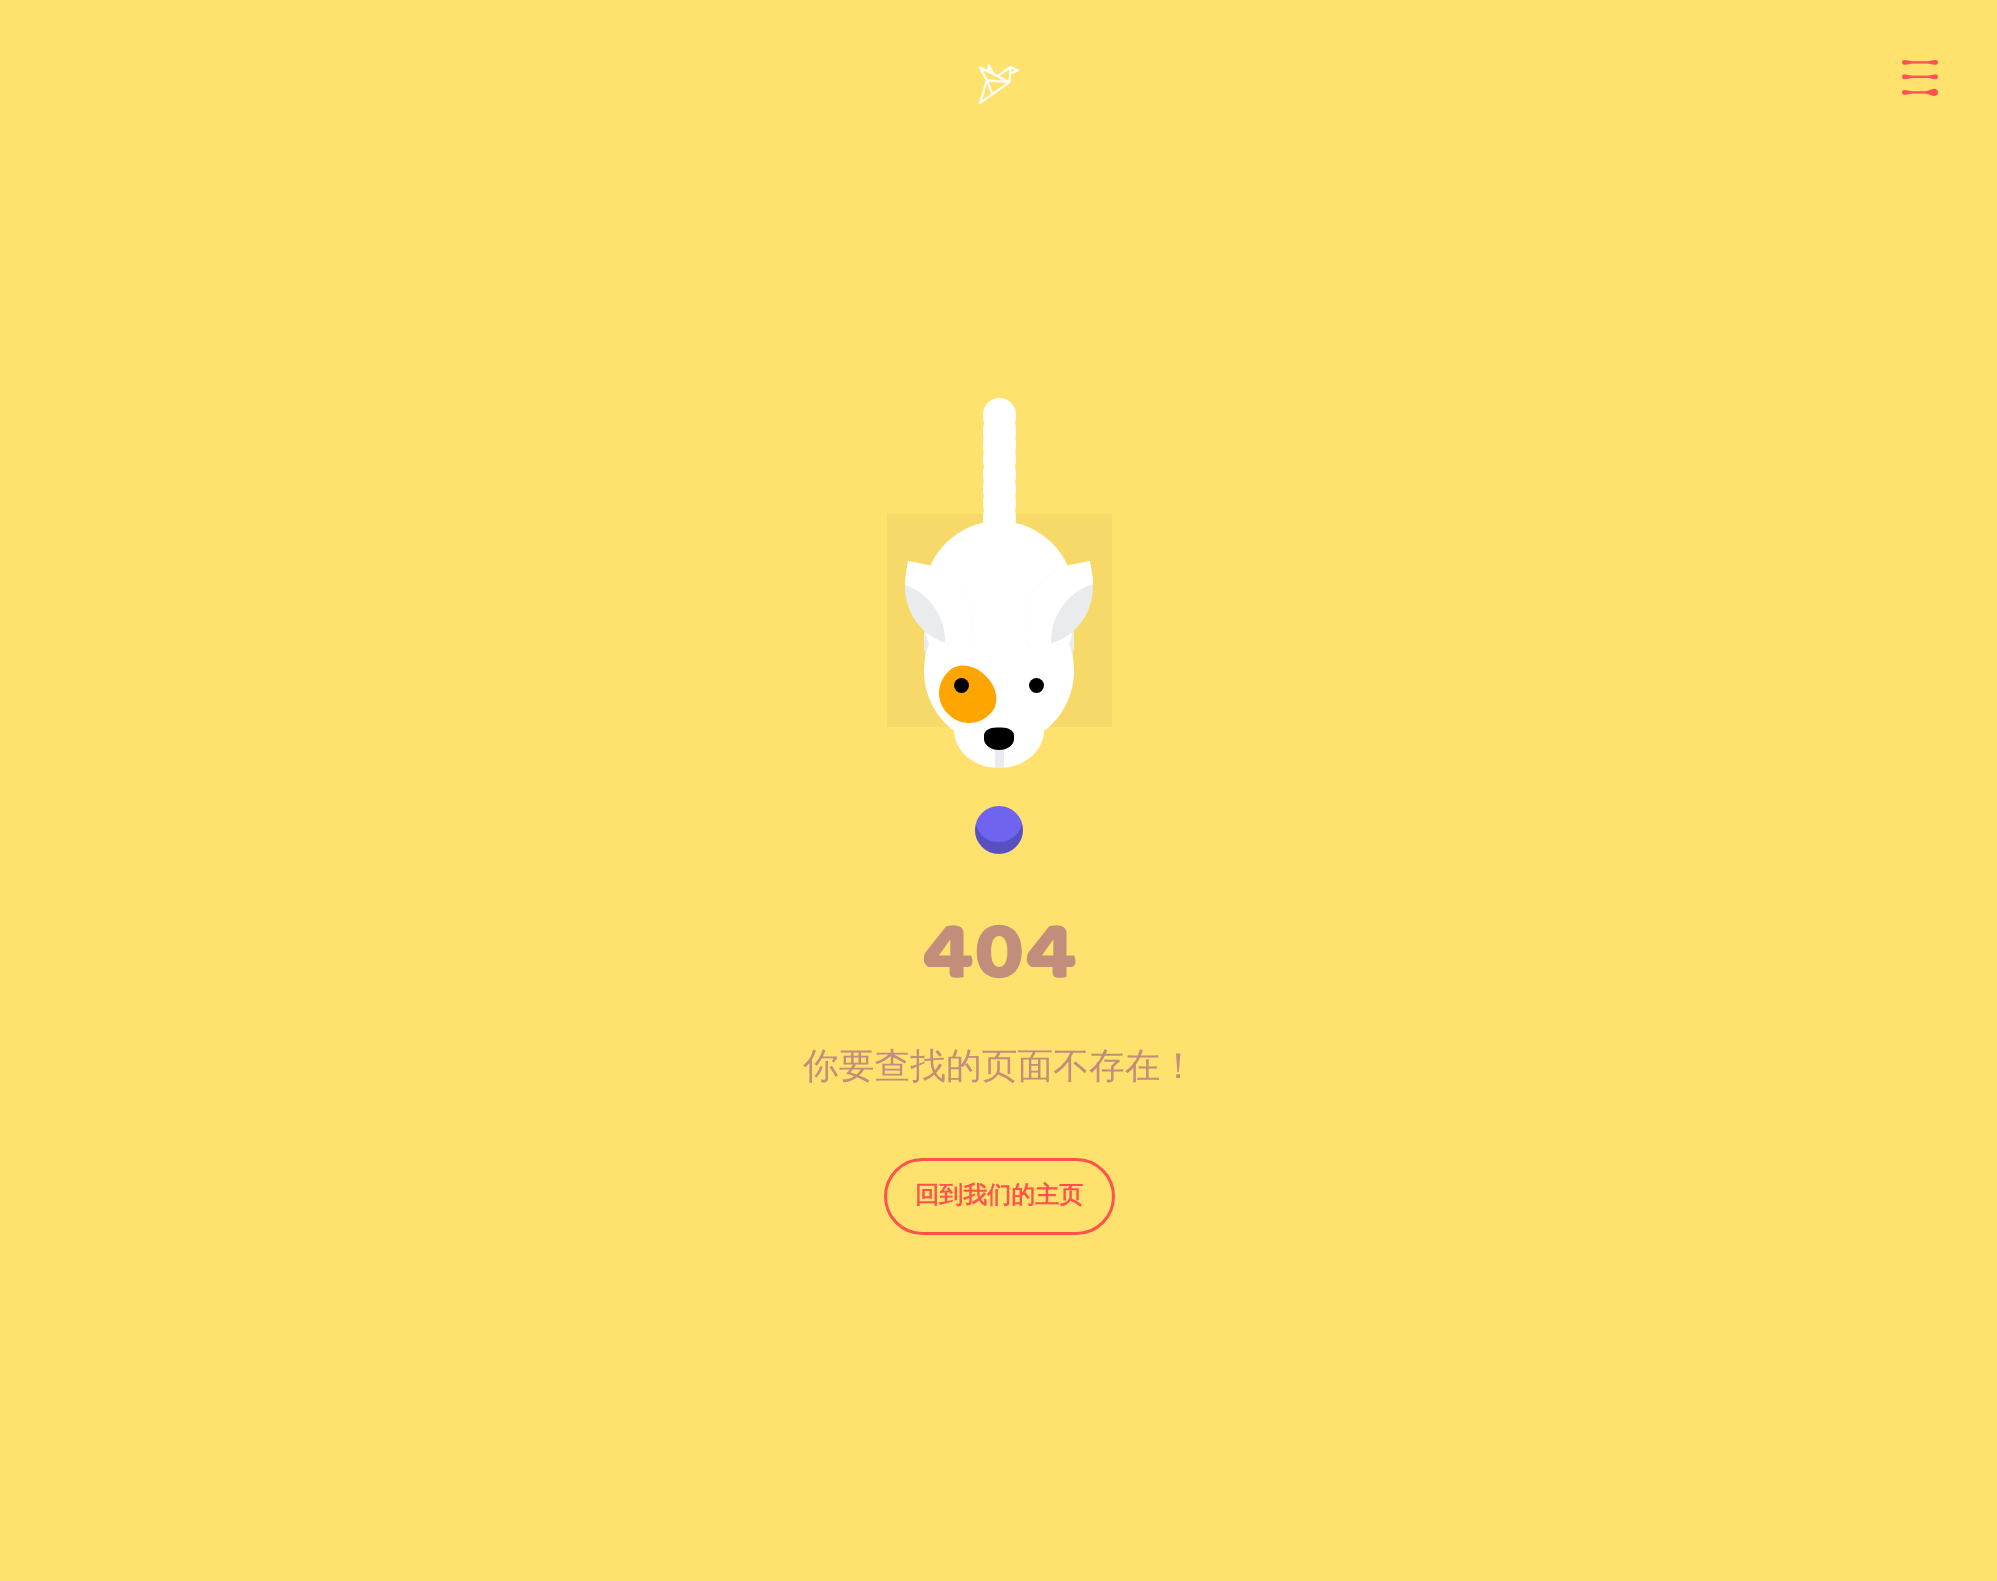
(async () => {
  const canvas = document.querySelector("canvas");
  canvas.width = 1997;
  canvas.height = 1581;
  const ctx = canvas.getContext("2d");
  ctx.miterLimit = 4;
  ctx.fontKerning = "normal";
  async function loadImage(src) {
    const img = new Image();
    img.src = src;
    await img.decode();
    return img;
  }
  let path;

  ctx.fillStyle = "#ffe16e";
  ctx.fillRect(0, 0, 1997, 1581);
  ctx.drawImage(await loadImage("img/1.png"), 978, 63, 42, 42);
  ctx.drawImage(await loadImage("img/2.png"), 1902, 60, 36, 36);
  ctx.fillStyle = "rgba(0, 0, 0, 0.03)";
  ctx.fillRect(887, 514, 225, 213);
  ctx.fillStyle = "#ffffff";
  ctx.beginPath();
  ctx.arc(999, 596, 75, 0, Math.PI * 2);
  ctx.fill();
  ctx.beginPath();
  ctx.roundRect(983, 500, 33, 36, 16.5);
  ctx.fill();
  ctx.beginPath();
  ctx.roundRect(983, 485, 33, 36, 16.5);
  ctx.fill();
  ctx.beginPath();
  ctx.roundRect(983, 470, 33, 37, 16.5);
  ctx.fill();
  ctx.beginPath();
  ctx.roundRect(983, 456, 33, 36, 16.5);
  ctx.fill();
  ctx.beginPath();
  ctx.roundRect(983, 441, 33, 36, 16.5);
  ctx.fill();
  ctx.beginPath();
  ctx.roundRect(983, 426, 33, 38, 16.5);
  ctx.fill();
  ctx.beginPath();
  ctx.roundRect(983, 413, 33, 36, 16.5);
  ctx.fill();
  ctx.beginPath();
  ctx.roundRect(983, 398, 33, 36, 16.5);
  ctx.fill();
  ctx.beginPath();
  ctx.arc(999, 641, 75, 0, Math.PI * 2);
  ctx.fill();
  ctx.fillStyle = "#eaebec";
  path = new Path2D("M925 629C916 687 974 733 1028 710C1042 704 1053 695 1061 683C1072 667 1076 648 1073 629C1068 665 1036 693 999 693C962 693 930 665 925 629Z");
  ctx.fill(path);
  ctx.fillStyle = "#ffffff";
  ctx.beginPath();
  ctx.arc(999, 671, 75, 0, Math.PI * 2);
  ctx.fill();
  ctx.fillStyle = "#eaebec";
  path = new Path2D("M908 561L923 564C956 569 977 601 972 633L969 648L954 645C922 640 900 609 906 576Z");
  ctx.fill(path);
  ctx.fillStyle = "#ffffff";
  path = new Path2D("M908 561C907 569 905 577 905 585C929 593 946 617 945 643C953 646 961 647 969 648L972 633C977 601 956 569 923 564Z");
  ctx.fill(path);
  ctx.fillStyle = "#eaebec";
  path = new Path2D("M1075 564L1090 561L1092 576C1098 609 1076 640 1044 645L1029 648L1026 633C1021 601 1042 569 1075 564Z");
  ctx.fill(path);
  ctx.fillStyle = "#ffffff";
  path = new Path2D("M1075 564C1042 569 1021 601 1026 633L1029 648L1051 644C1050 617 1067 592 1093 584C1093 576 1091 569 1090 561Z");
  ctx.fill(path);
  path = new Path2D("M954 693H1044V730C1044 751 1024 768 999 768C974 768 954 751 954 730Z");
  ctx.fill(path);
  ctx.fillStyle = "#ffa500";
  path = new Path2D("M948 672C957 662 974 664 986 676C998 688 1000 705 990 714C978 726 960 726 948 714C936 702 936 684 948 672Z");
  ctx.fill(path);
  ctx.fillStyle = "#ffffff";
  path = new Path2D("M975.5 665.5L979.5 661L1001 682.5L996.5 686.5Z");
  ctx.fill(path);
  ctx.fillStyle = "#000000";
  ctx.beginPath();
  ctx.arc(961.5, 685.5, 7.5, 0, Math.PI * 2);
  ctx.fill();
  ctx.beginPath();
  ctx.arc(1036.5, 685.5, 7.5, 0, Math.PI * 2);
  ctx.fill();
  ctx.fillStyle = "#eaebec";
  ctx.fillRect(995, 749, 9, 19);
  ctx.fillStyle = "#000000";
  path = new Path2D("M996.5 727.5H1001.5C1008.5 727.5 1014 731 1014 735V739C1014 745 1007.5 750 999 750C990.5 750 984 745 984 739V735C984 731 989.5 727.5 996.5 727.5Z");
  ctx.fill(path);
  ctx.fillStyle = "#6e64f0";
  ctx.beginPath();
  ctx.arc(999, 830, 24, 0, Math.PI * 2);
  ctx.fill();
  ctx.fillStyle = "rgba(0, 0, 0, 0.2)";
  path = new Path2D("M976 824C974 831 975 838 979 843C994 866 1029 849 1022 824C1016 848 981 848 976 824Z");
  ctx.fill(path);
  ctx.beginPath();
  ctx.roundRect(885.5, 1159.5, 228, 74, 37);
  ctx.strokeStyle = "#ff524e";
  ctx.lineWidth = 3;
  ctx.stroke();
  ctx.font = "84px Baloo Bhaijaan";
  ctx.fillStyle = "#c38d7c";
  ctx.fillText("404", 922, 977);
  ctx.font = "500 35.75px WenQuanYi Zen Hei";
  ctx.fillText("你要查找的页面不存在！", 803, 1078);
  ctx.font = "bold 24px WenQuanYi Zen Hei";
  ctx.fillStyle = "#ff524e";
  ctx.fillText("回到我们的主页", 915, 1203);
})();
